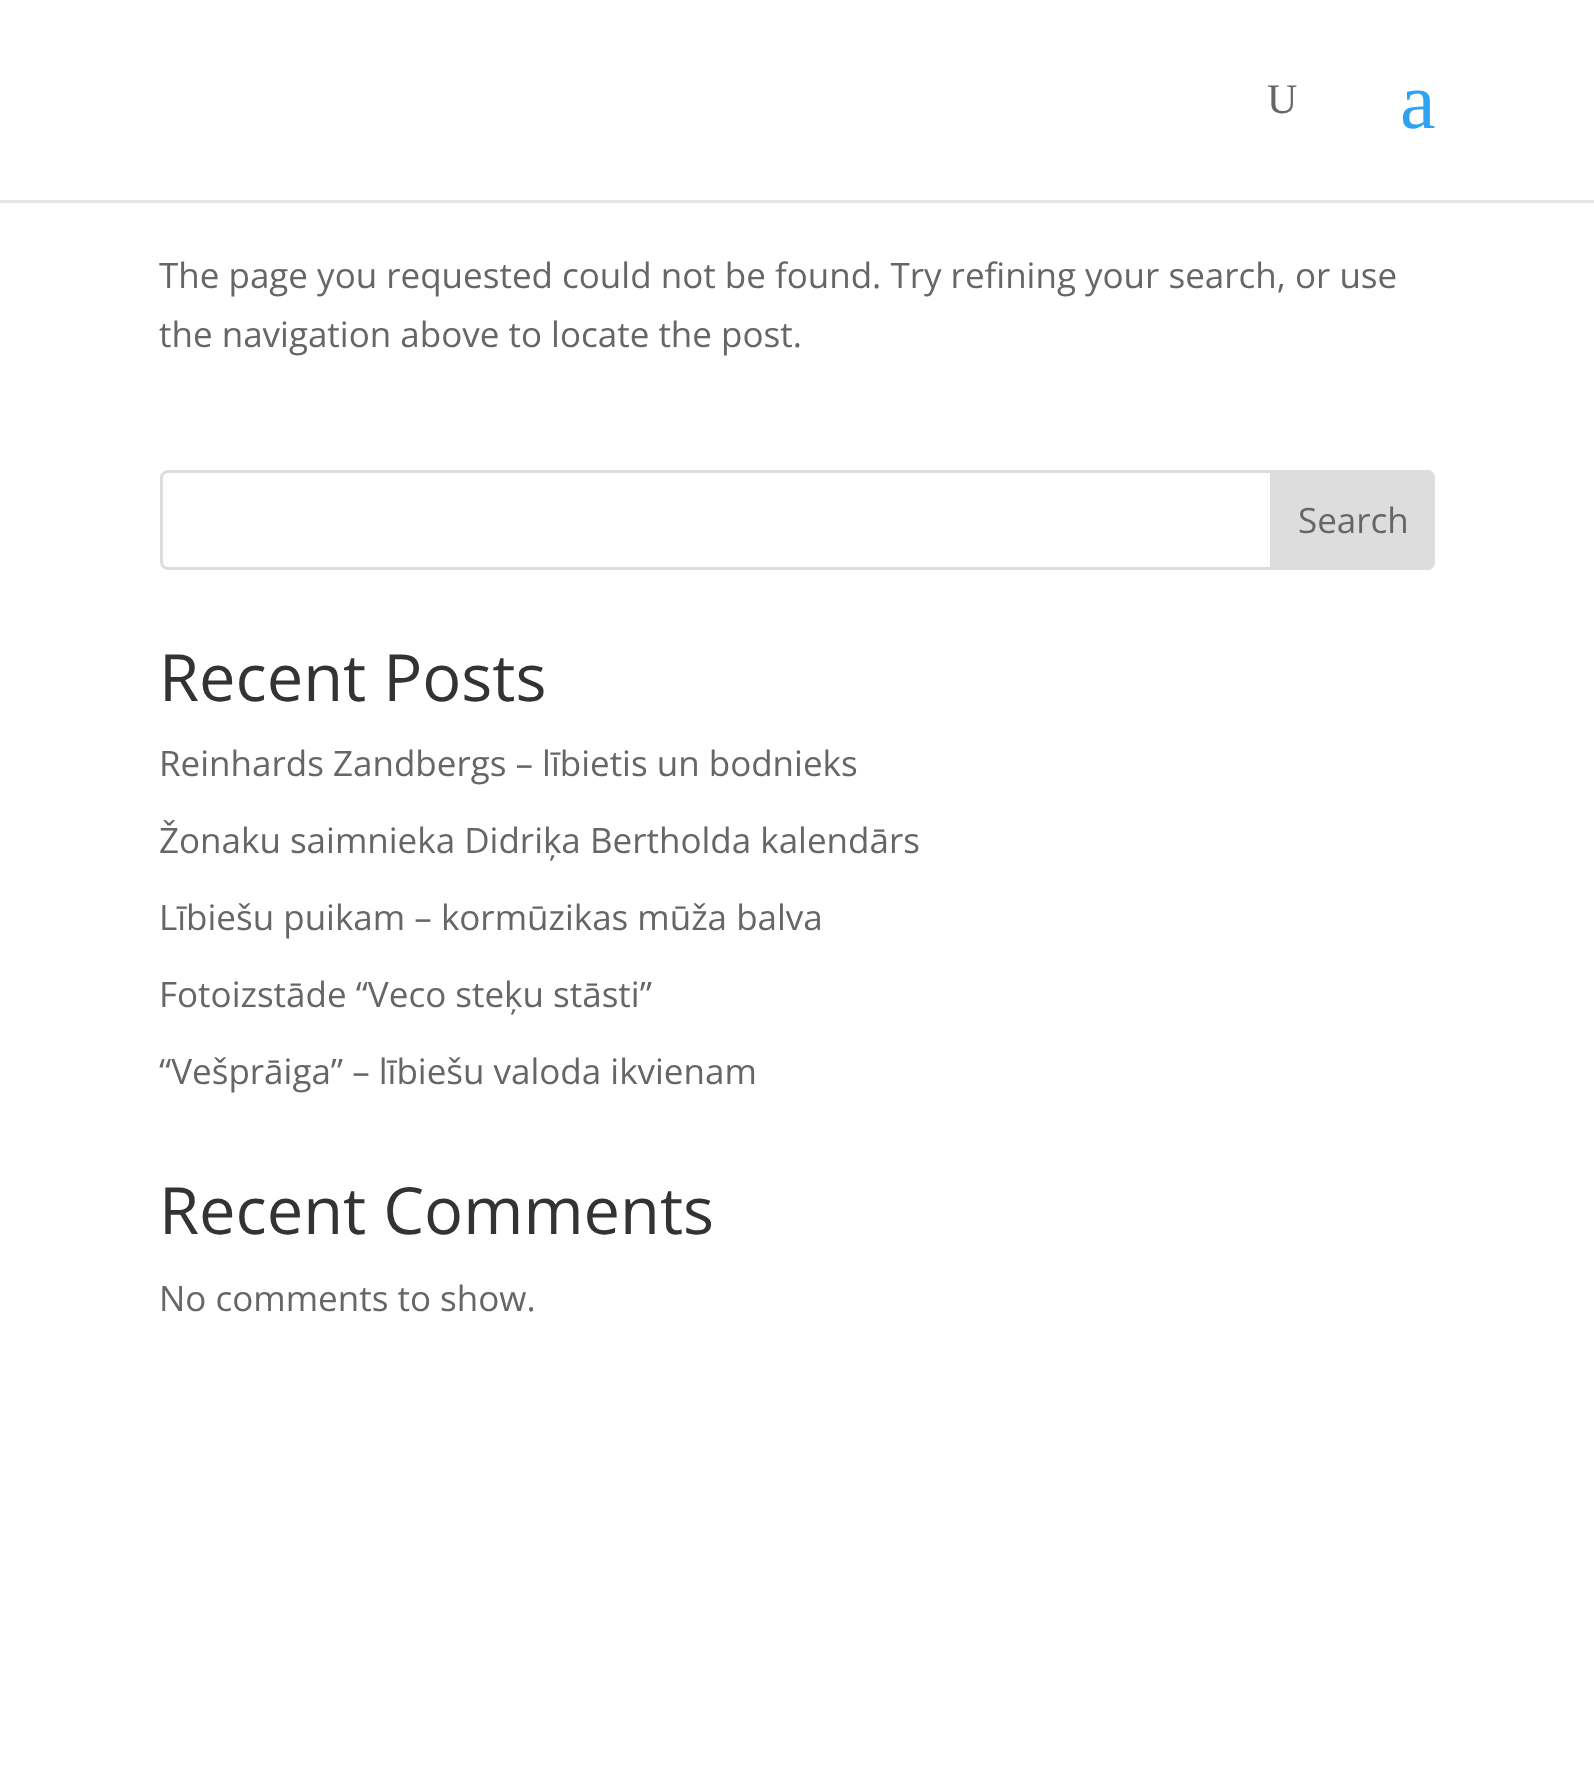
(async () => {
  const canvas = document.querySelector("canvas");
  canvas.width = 1594;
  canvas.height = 1790;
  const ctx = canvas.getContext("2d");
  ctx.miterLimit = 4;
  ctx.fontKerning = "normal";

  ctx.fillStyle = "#ffffff";
  ctx.fillRect(0, 0, 1594, 1790);
  ctx.fillStyle = "rgba(0, 0, 0, 0.1)";
  ctx.fillRect(0, 200, 1594, 3);
  ctx.beginPath();
  ctx.roundRect(161.5, 471.5, 1272, 97, 6.5);
  ctx.strokeStyle = "#dddddd";
  ctx.lineWidth = 3;
  ctx.stroke();
  ctx.fillStyle = "#dddddd";
  ctx.beginPath();
  ctx.roundRect(1271.5, 471.5, 162, 97, [0, 6.5, 6.5, 0]);
  ctx.fill();
  ctx.stroke();
  ctx.font = "42px Liberation Serif";
  ctx.fillStyle = "#666666";
  ctx.fillText("U", 1267, 113);
  ctx.font = "80px Liberation Serif";
  ctx.fillStyle = "#2ea3f2";
  ctx.fillText("a", 1400, 128);
  ctx.font = "35px Open Sans";
  ctx.fillStyle = "#666666";
  for (const [text, x, y] of [
    ["The page you requested could not be found. Try refining your search, or use", 159, 288],
    ["the navigation above to locate the post.", 159, 347],
    ["Search", 1298, 533],
  ]) {
    ctx.fillText(text, x, y);
  }
  ctx.font = "65px Open Sans";
  ctx.fillStyle = "#333333";
  ctx.fillText("Recent Posts", 159, 701);
  ctx.font = "35px Open Sans";
  ctx.fillStyle = "#666666";
  for (const [text, x, y] of [
    ["Reinhards Zandbergs – lībietis un bodnieks", 159, 776],
    ["Žonaku saimnieka Didriķa Bertholda kalendārs", 159, 853],
    ["Lībiešu puikam – kormūzikas mūža balva", 159, 930],
    ["Fotoizstāde “Veco steķu stāsti”", 159, 1007],
    ["“Vešprāiga” – lībiešu valoda ikvienam", 159, 1084],
  ]) {
    ctx.fillText(text, x, y);
  }
  ctx.font = "65px Open Sans";
  ctx.fillStyle = "#333333";
  ctx.fillText("Recent Comments", 159, 1234);
  ctx.font = "35px Open Sans";
  ctx.fillStyle = "#666666";
  ctx.fillText("No comments to show.", 159, 1311);
})();
